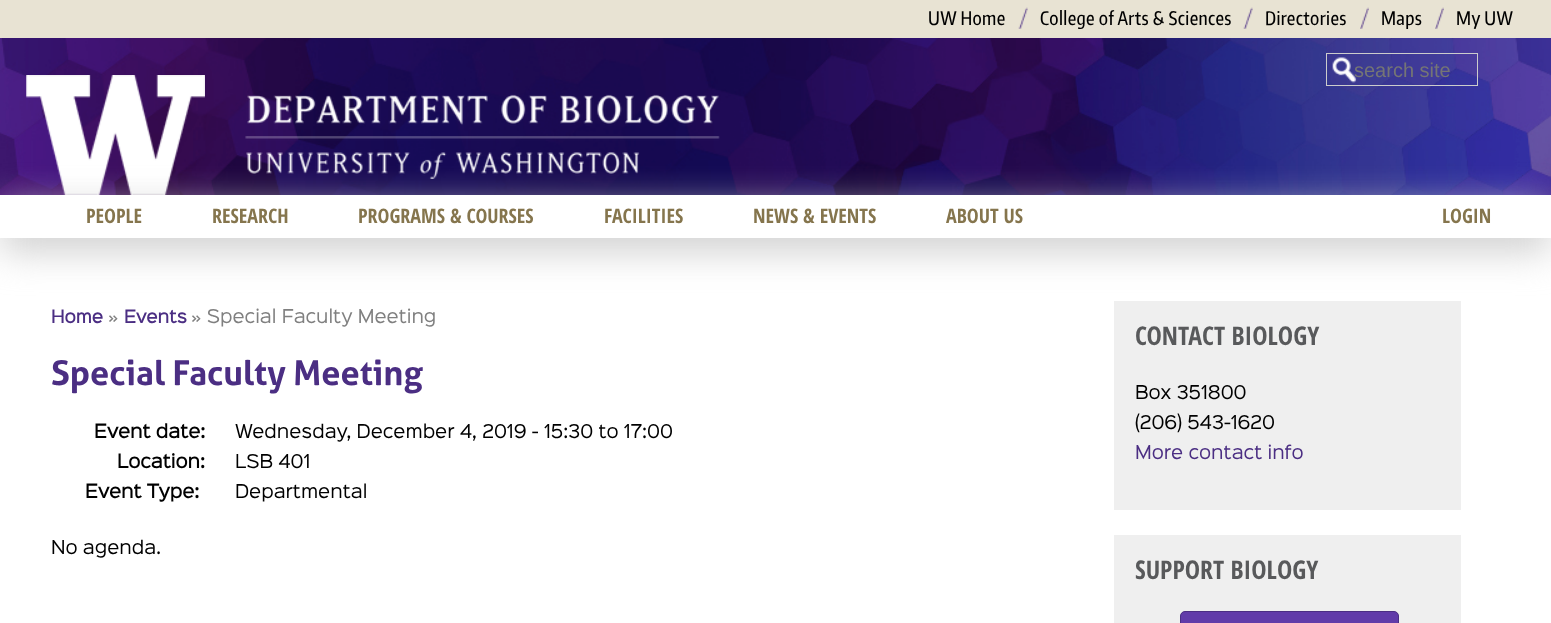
(async () => {
  const canvas = document.querySelector("canvas");
  canvas.width = 1551;
  canvas.height = 623;
  const ctx = canvas.getContext("2d");
  ctx.miterLimit = 4;
  ctx.fontKerning = "normal";
  async function loadImage(src) {
    const img = new Image();
    img.src = src;
    await img.decode();
    return img;
  }

  ctx.fillStyle = "#ffffff";
  ctx.fillRect(0, 0, 1551, 623);
  ctx.drawImage(await loadImage("img/1.png"), 0, 38, 1551, 157);
  ctx.fillStyle = "#e8e3d3";
  ctx.fillRect(0, 0, 1551, 38);
  ctx.drawImage(await loadImage("img/2.png"), 1018, 7, 10, 22);
  ctx.drawImage(await loadImage("img/3.png"), 1243, 7, 10, 22);
  ctx.drawImage(await loadImage("img/4.png"), 1360, 7, 9, 22);
  ctx.drawImage(await loadImage("img/4.png"), 1435, 7, 9, 22);
  ctx.drawImage(await loadImage("img/5.png"), 1332, 57, 25, 26);
  ctx.strokeStyle = "#cccccc";
  ctx.strokeRect(1326.5, 53.5, 151, 32);
  ctx.drawImage(await loadImage("img/6.png"), 26, 75, 179, 120);
  ctx.drawImage(await loadImage("img/7.png"), 245, 94, 475, 85);
  ctx.fillStyle = "#efefef";
  ctx.fillRect(1114, 301, 347, 209);
  ctx.fillStyle = "#cccccc";
  ctx.filter = "blur(19px)";
  ctx.beginPath();
  ctx.rect(0, 208, 1551, 42);
  ctx.fill();
  ctx.filter = "none";
  ctx.fillStyle = "#ffffff";
  ctx.fillRect(0, 195, 1551, 43);
  ctx.fillStyle = "#efefef";
  ctx.fillRect(1114, 535, 347, 88);
  ctx.fillStyle = "#613ba9";
  ctx.beginPath();
  ctx.roundRect(1180.5, 611.5, 218, 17, 4.5);
  ctx.fill();
  ctx.strokeStyle = "#4b2e83";
  ctx.stroke();
  ctx.letterSpacing = "0.4px";
  ctx.font = "500 18.5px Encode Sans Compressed";
  ctx.fillStyle = "#000000";
  for (const [text, x, y] of [
    ["UW Home", 928, 25],
    ["College of Arts & Sciences", 1040, 25],
    ["Directories", 1265, 25],
    ["Maps", 1381, 25],
    ["My UW", 1456, 25],
  ]) {
    ctx.fillText(text, x, y);
  }
  ctx.letterSpacing = "0px";
  ctx.font = "20px Liberation Sans";
  ctx.fillStyle = "#757575";
  ctx.fillText("search site", 1354, 77);
  ctx.font = "bold 20px Open Sans Condensed";
  ctx.fillStyle = "#85754d";
  for (const [text, x, y] of [
    ["PEOPLE", 86, 223],
    ["RESEARCH", 212, 223],
    ["PROGRAMS & COURSES", 358, 223],
    ["FACILITIES", 604, 223],
    ["NEWS & EVENTS", 753, 223],
    ["ABOUT US", 946, 223],
    ["LOGIN", 1442, 223],
  ]) {
    ctx.fillText(text, x, y);
  }
  ctx.font = "bold 16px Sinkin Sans";
  ctx.fillStyle = "#4b2e83";
  ctx.fillText("Home", 51, 323);
  ctx.font = "17.15px Sinkin Sans";
  ctx.fillStyle = "#808080";
  ctx.fillText("»", 108, 323);
  ctx.font = "bold 16px Sinkin Sans";
  ctx.fillStyle = "#4b2e83";
  ctx.fillText("Events", 124, 323);
  ctx.font = "17.15px Sinkin Sans";
  ctx.fillStyle = "#808080";
  ctx.fillText("» Special Faculty Meeting", 191, 323);
  ctx.font = "bold 34.25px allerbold";
  ctx.fillStyle = "#4b2e83";
  ctx.fillText("Special Faculty Meeting", 51, 385);
  ctx.font = "bold 17.15px Sinkin Sans";
  ctx.fillStyle = "#000000";
  ctx.fillText("Event date:", 94, 438);
  ctx.font = "17.15px Sinkin Sans";
  ctx.fillText("Wednesday, December 4, 2019 - 15:30 to 17:00", 235, 438);
  ctx.font = "bold 17.15px Sinkin Sans";
  ctx.fillText("Location:", 117, 468);
  ctx.font = "17.15px Sinkin Sans";
  ctx.fillText("LSB 401", 235, 468);
  ctx.font = "bold 17.15px Sinkin Sans";
  ctx.fillText("Event Type:", 85, 498);
  ctx.font = "17.15px Sinkin Sans";
  ctx.fillText("Departmental", 235, 498);
  ctx.fillText("No agenda.", 51, 554);
  ctx.font = "bold 25.75px Open Sans Condensed";
  ctx.fillStyle = "#58595b";
  ctx.fillText("CONTACT BIOLOGY", 1135, 345);
  ctx.font = "17.15px Sinkin Sans";
  ctx.fillStyle = "#000000";
  ctx.fillText("Box 351800", 1135, 399);
  ctx.fillText("(206) 543-1620", 1135, 429);
  ctx.fillStyle = "#4b2e83";
  ctx.fillText("More contact info", 1135, 459);
  ctx.font = "bold 25.75px Open Sans Condensed";
  ctx.fillStyle = "#58595b";
  ctx.fillText("SUPPORT BIOLOGY", 1135, 579);
})();
